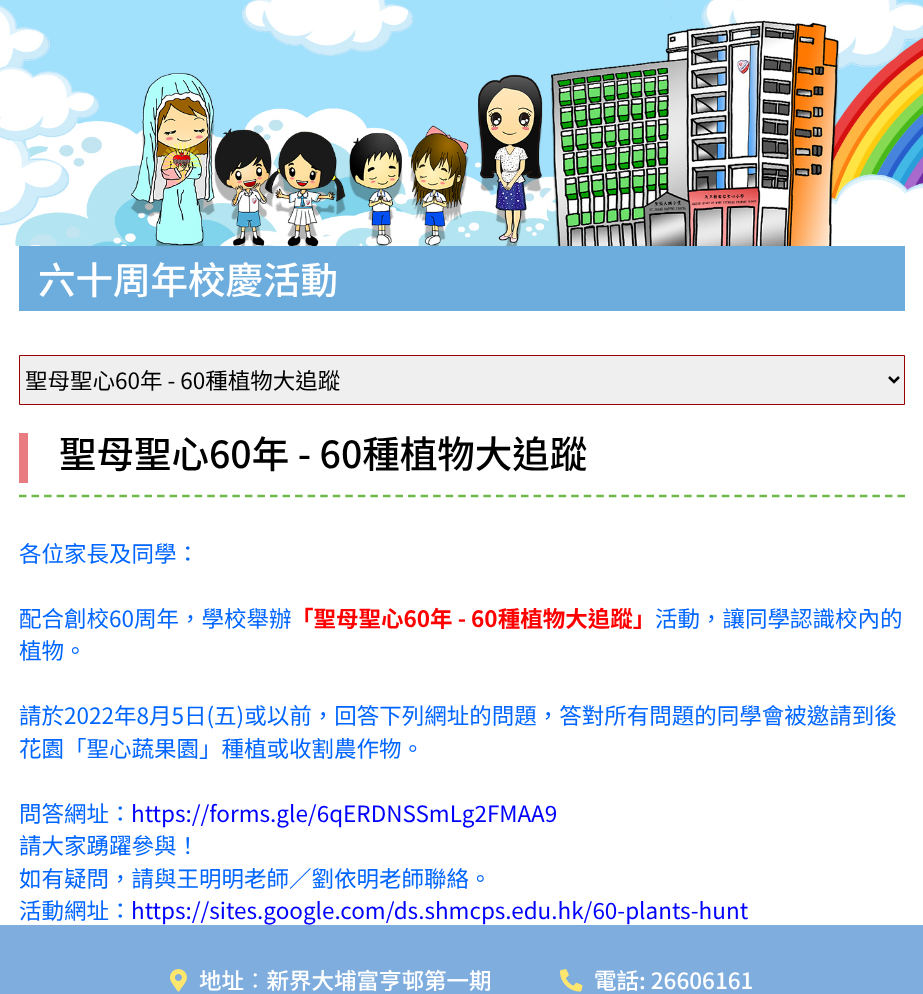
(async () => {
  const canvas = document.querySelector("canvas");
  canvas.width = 923;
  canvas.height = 994;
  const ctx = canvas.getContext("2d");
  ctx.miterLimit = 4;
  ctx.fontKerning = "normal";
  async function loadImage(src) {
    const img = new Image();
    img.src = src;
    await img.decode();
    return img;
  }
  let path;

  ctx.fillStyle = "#ffffff";
  ctx.fillRect(0, 0, 923, 994);
  ctx.drawImage(await loadImage("img/1.png"), 0, 0, 923, 246);
  ctx.fillStyle = "#6dadde";
  ctx.fillRect(19, 246, 886, 65);
  ctx.fillStyle = "#efefef";
  ctx.beginPath();
  ctx.rect(19.5, 355.5, 885, 49);
  ctx.fill();
  ctx.strokeStyle = "#990000";
  ctx.stroke();
  path = new Path2D("M889 377L894 382L899 377");
  ctx.strokeStyle = "#000000";
  ctx.lineWidth = 2.5;
  ctx.stroke(path);
  path = new Path2D("M19 496H905");
  ctx.strokeStyle = "#6db94a";
  ctx.setLineDash([7.5, 5.05]);
  ctx.stroke(path);
  ctx.fillStyle = "#e97c80";
  ctx.fillRect(19, 433, 9, 50);
  ctx.fillStyle = "#7fadde";
  ctx.fillRect(0, 925, 923, 69);
  ctx.drawImage(await loadImage("img/2.png"), 170, 969, 17, 23);
  ctx.drawImage(await loadImage("img/3.png"), 560, 969, 23, 23);
  ctx.font = "500 37.5px Noto Sans HK";
  ctx.fillStyle = "#ffffff";
  ctx.fillText("六十周年校慶活動", 38, 294);
  ctx.font = "22.5px Noto Sans HK";
  ctx.fillStyle = "#000000";
  ctx.fillText("聖母聖心60年 - 60種植物大追蹤", 25, 389);
  ctx.font = "500 37.5px Noto Sans HK";
  ctx.fillText("聖母聖心60年 - 60種植物大追蹤", 59, 468);
  ctx.font = "22.5px Noto Sans HK";
  ctx.fillStyle = "#0066ff";
  ctx.fillText("各位家長及同學：", 19, 562);
  ctx.fillText("配合創校60周年，學校舉辦", 19, 627);
  ctx.font = "bold 22.5px Noto Sans HK";
  ctx.fillStyle = "#ff0000";
  ctx.fillText("「聖母聖心60年 - 60種植物大追蹤」", 291, 627);
  ctx.font = "22.5px Noto Sans HK";
  ctx.fillStyle = "#0066ff";
  for (const [text, x, y] of [
    ["活動，讓同學認識校內的", 655, 627],
    ["植物。", 19, 659],
    ["請於2022年8月5日(五)或以前，回答下列網址的問題，答對所有問題的同學會被邀請到後", 19, 724],
    ["花園「聖心蔬果園」種植或收割農作物。", 19, 757],
    ["問答網址：", 19, 822],
  ]) {
    ctx.fillText(text, x, y);
  }
  ctx.fillStyle = "#0000ff";
  ctx.fillText("https://forms.gle/6qERDNSSmLg2FMAA9", 131, 822);
  ctx.fillStyle = "#0066ff";
  for (const [text, x, y] of [
    ["請大家踴躍參與！", 19, 854],
    ["如有疑問，請與王明明老師／劉依明老師聯絡。", 19, 887],
    ["活動網址：", 19, 919],
  ]) {
    ctx.fillText(text, x, y);
  }
  ctx.fillStyle = "#0000ff";
  ctx.fillText("https://sites.google.com/ds.shmcps.edu.hk/60-plants-hunt", 131, 919);
  ctx.font = "500 22.5px Noto Sans HK";
  ctx.fillStyle = "#ffffff";
  ctx.fillText("地址︰新界大埔富亨邨第一期", 199, 989);
  ctx.fillText("電話: 26606161", 594, 989);
})();
